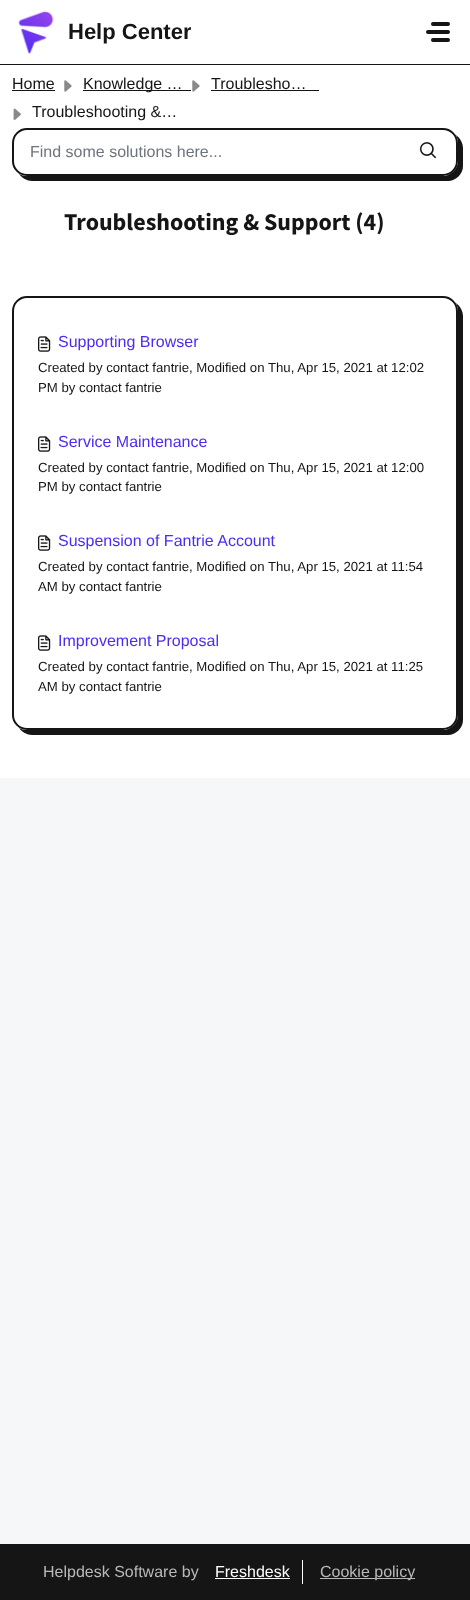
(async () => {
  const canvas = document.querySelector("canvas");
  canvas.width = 470;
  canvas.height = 1600;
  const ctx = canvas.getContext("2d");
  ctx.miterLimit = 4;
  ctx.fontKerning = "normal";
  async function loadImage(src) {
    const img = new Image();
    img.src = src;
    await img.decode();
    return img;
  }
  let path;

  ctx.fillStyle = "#f5f7f9";
  ctx.fillRect(0, 0, 470, 1600);
  ctx.fillStyle = "#ffffff";
  ctx.fillRect(0, 0, 470, 64);
  ctx.fillStyle = "#151515";
  ctx.fillRect(0, 64, 470, 1);
  ctx.drawImage(await loadImage("img/1.png"), 18, 11, 36, 43);
  ctx.beginPath();
  ctx.roundRect(431, 22, 19, 4, 2);
  ctx.fill();
  ctx.beginPath();
  ctx.roundRect(426, 30, 24, 4, 2);
  ctx.fill();
  ctx.beginPath();
  ctx.roundRect(431, 38, 19, 4, 2);
  ctx.fill();
  ctx.fillStyle = "#ffffff";
  ctx.fillRect(0, 65, 470, 713);
  ctx.fillStyle = "#151515";
  ctx.fillRect(12, 90, 43, 1);
  ctx.drawImage(await loadImage("img/2.png"), 64, 80, 8, 12);
  ctx.fillRect(83, 90, 108, 1);
  ctx.drawImage(await loadImage("img/2.png"), 192, 80, 8, 12);
  ctx.fillRect(211, 90, 108, 1);
  ctx.drawImage(await loadImage("img/3.png"), 13, 108, 8, 12);
  path = new Path2D("M19 174C22 178 27 181 32 181H448C456 181 463 174 463 166V148C463 143 460 138 456 135C457 137 458 140 458 143V161C458 169 451 176 443 176H27C24 176 21 175 19 174Z");
  ctx.fill(path);
  ctx.beginPath();
  ctx.roundRect(13, 129, 444, 46, 14);
  ctx.strokeStyle = "#151515";
  ctx.lineWidth = 2;
  ctx.stroke();
  ctx.drawImage(await loadImage("img/4.png"), 420, 142, 16, 17);
  path = new Path2D("M19 728C22 732 27 735 32 735H448C456 735 463 728 463 720V316C463 311 460 306 456 303C457 305 458 308 458 311V715C458 723 451 730 443 730H27C24 730 21 729 19 728Z");
  ctx.fill(path);
  ctx.fillStyle = "#ffffff";
  ctx.beginPath();
  ctx.roundRect(13, 297, 444, 432, 14);
  ctx.fill();
  ctx.stroke();
  ctx.drawImage(await loadImage("img/5.png"), 38, 336, 13, 16);
  ctx.drawImage(await loadImage("img/5.png"), 38, 436, 13, 16);
  ctx.drawImage(await loadImage("img/5.png"), 38, 535, 13, 16);
  ctx.drawImage(await loadImage("img/5.png"), 38, 635, 13, 16);
  for (const [x, y, w, h, color] of [
    [0, 1544, 470, 56, "#151515"],
    [302, 1560, 1, 24, "#ffffff"],
    [215, 1578, 75, 1, "#ffffff"],
    [320, 1578, 95, 1, "#b9b9b9"],
  ]) {
    ctx.fillStyle = color;
    ctx.fillRect(x, y, w, h);
  }
  ctx.save();
  ctx.beginPath();
  ctx.rect(68, 19, 123, 26);
  ctx.clip();
  ctx.font = "bold 22px Liberation Sans";
  ctx.fillStyle = "#151515";
  ctx.fillText("Help Center", 68, 39);
  ctx.restore();
  ctx.font = "16px Liberation Sans";
  ctx.fillStyle = "#151515";
  for (const [text, x, y] of [
    ["Home", 12, 89],
    ["Knowledge …", 83, 89],
    ["Troublesho…", 211, 89],
    ["Troubleshooting &…", 32, 117],
  ]) {
    ctx.fillText(text, x, y);
  }
  ctx.fillStyle = "#6c757d";
  ctx.fillText("Find some solutions here...", 30, 157);
  ctx.font = "bold 24px Source Sans Pro";
  ctx.fillStyle = "#151515";
  ctx.fillText("Troubleshooting & Support (4)", 64, 230);
  ctx.font = "16px Liberation Sans";
  ctx.fillStyle = "#4e2bf4";
  ctx.fillText("Supporting Browser", 58, 347);
  ctx.font = "13.2px Liberation Sans";
  ctx.fillStyle = "#151515";
  ctx.fillText("Created by contact fantrie, Modified on Thu, Apr 15, 2021 at 12:02", 38, 372);
  ctx.fillText("PM by contact fantrie", 38, 392);
  ctx.font = "16px Liberation Sans";
  ctx.fillStyle = "#4e2bf4";
  ctx.fillText("Service Maintenance", 58, 447);
  ctx.font = "13.2px Liberation Sans";
  ctx.fillStyle = "#151515";
  ctx.fillText("Created by contact fantrie, Modified on Thu, Apr 15, 2021 at 12:00", 38, 472);
  ctx.fillText("PM by contact fantrie", 38, 491);
  ctx.font = "16px Liberation Sans";
  ctx.fillStyle = "#4e2bf4";
  ctx.fillText("Suspension of Fantrie Account", 58, 546);
  ctx.font = "13.2px Liberation Sans";
  ctx.fillStyle = "#151515";
  ctx.fillText("Created by contact fantrie, Modified on Thu, Apr 15, 2021 at 11:54", 38, 571);
  ctx.fillText("AM by contact fantrie", 38, 591);
  ctx.font = "16px Liberation Sans";
  ctx.fillStyle = "#4e2bf4";
  ctx.fillText("Improvement Proposal", 58, 646);
  ctx.font = "13.2px Liberation Sans";
  ctx.fillStyle = "#151515";
  ctx.fillText("Created by contact fantrie, Modified on Thu, Apr 15, 2021 at 11:25", 38, 671);
  ctx.fillText("AM by contact fantrie", 38, 691);
  ctx.font = "16px Liberation Sans";
  ctx.fillStyle = "#b9b9b9";
  ctx.fillText("Helpdesk Software by", 43, 1577);
  ctx.fillStyle = "#ffffff";
  ctx.fillText("Freshdesk", 215, 1577);
  ctx.fillStyle = "#b9b9b9";
  ctx.fillText("Cookie policy", 320, 1577);
})();
